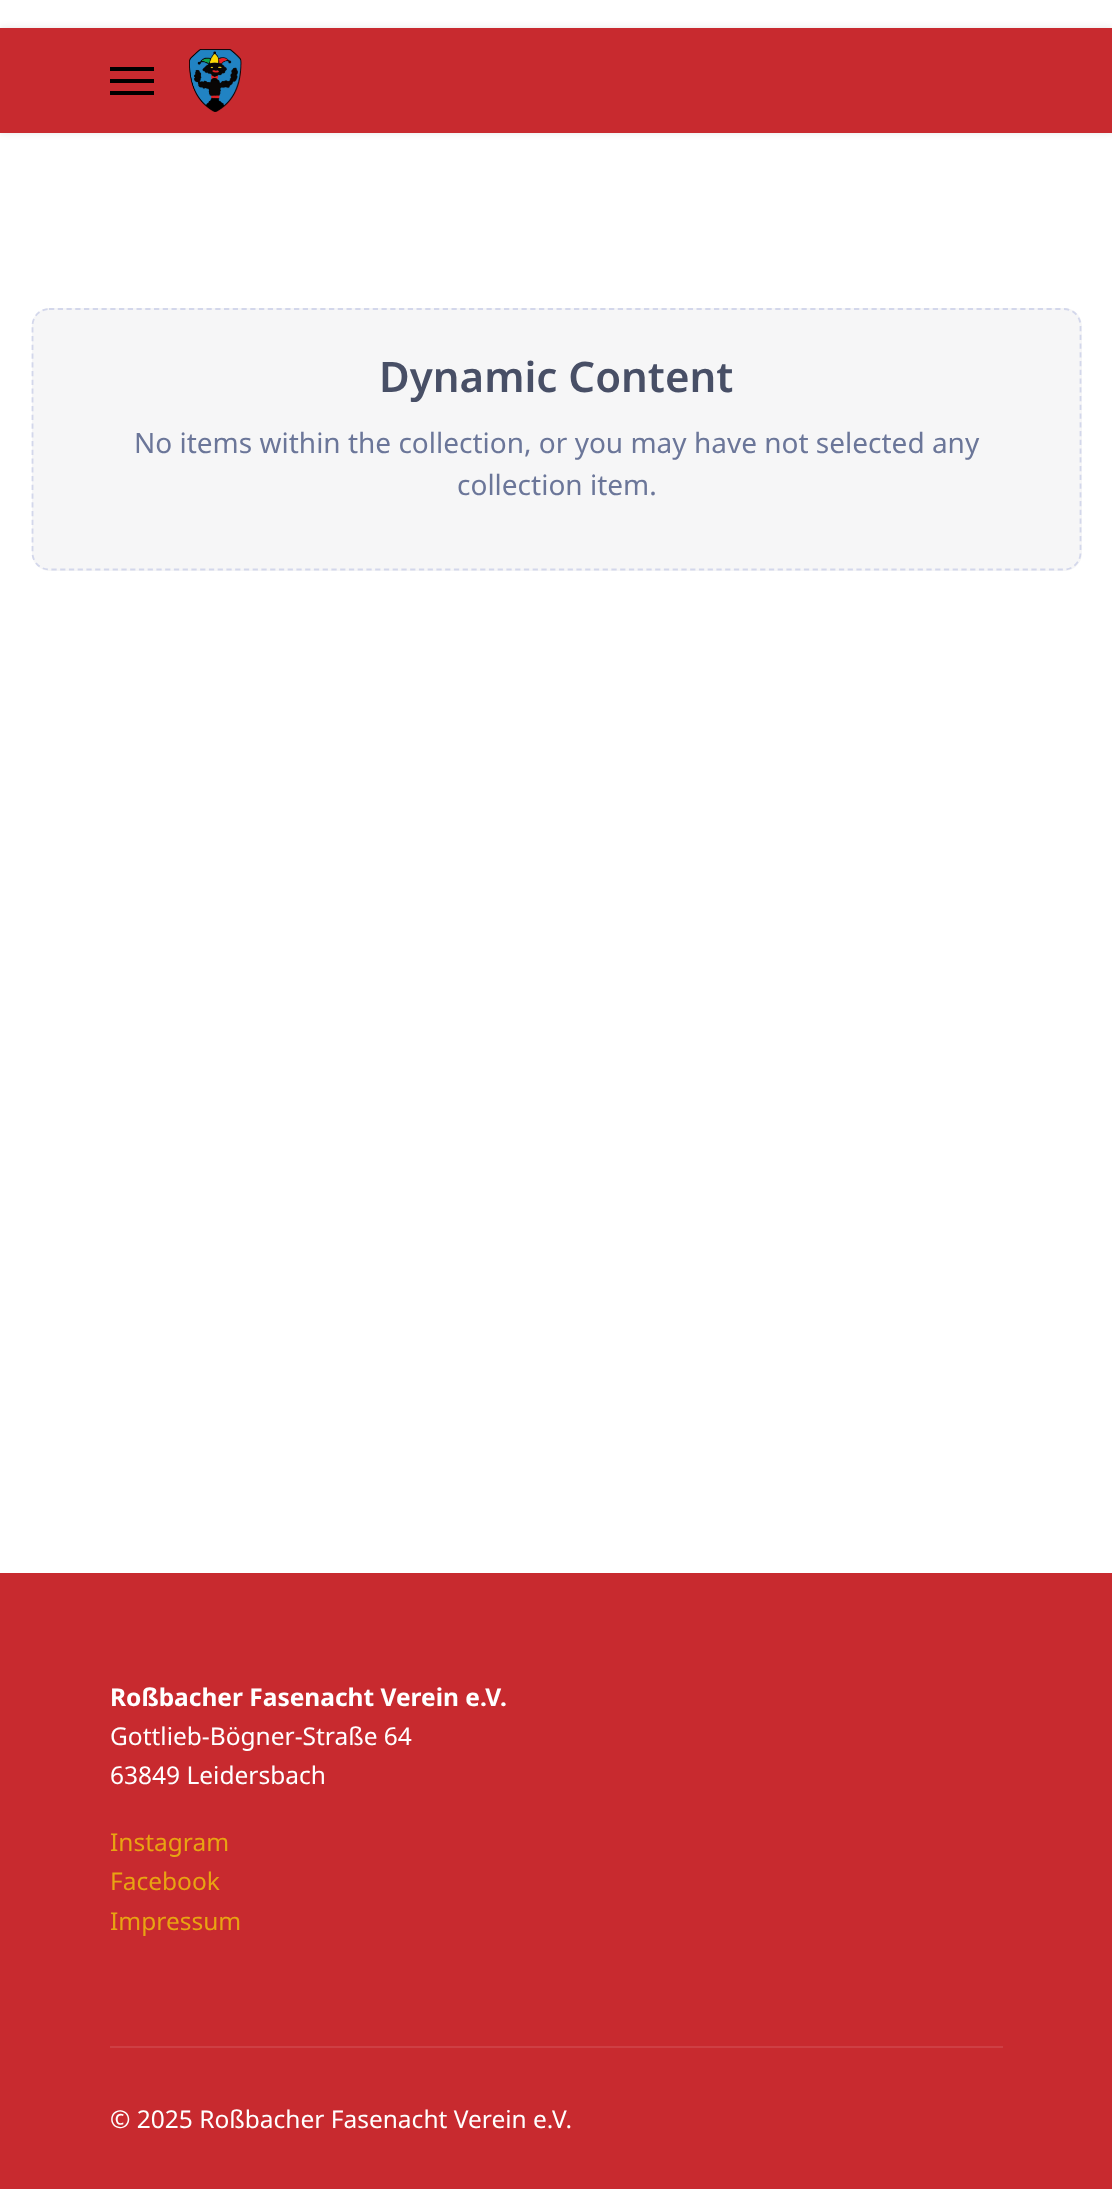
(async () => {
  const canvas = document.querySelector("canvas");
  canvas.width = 1112;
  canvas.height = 2189;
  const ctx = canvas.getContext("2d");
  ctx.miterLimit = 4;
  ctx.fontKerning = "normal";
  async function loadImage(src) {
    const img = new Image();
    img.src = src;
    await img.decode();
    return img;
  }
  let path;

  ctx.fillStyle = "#ffffff";
  ctx.fillRect(0, 0, 1112, 2189);
  ctx.fillStyle = "rgba(0, 0, 0, 0.1)";
  ctx.filter = "blur(3.5px)";
  ctx.beginPath();
  ctx.rect(0, 28, 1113, 105);
  ctx.fill();
  ctx.filter = "none";
  for (const [x, y, w, h, color] of [
    [0, 28, 1112, 105, "#c82a2f"],
    [110, 67, 44, 4, "#000000"],
    [110, 79, 44, 4, "#000000"],
    [110, 91, 44, 4, "#000000"],
  ]) {
    ctx.fillStyle = color;
    ctx.fillRect(x, y, w, h);
  }
  ctx.drawImage(await loadImage("img/1.png"), 189, 49, 53, 63);
  ctx.fillStyle = "#f6f6f7";
  ctx.beginPath();
  ctx.roundRect(32, 308, 1050, 263, 18);
  ctx.fill();
  path = new Path2D("M49 309H1064C1073 309 1080.5 316.5 1080.5 325.5V553C1080.5 562 1073 569.5 1064 569.5H49C40 569.5 32.5 562 32.5 553V325.5C32.5 316.5 40 309 49 309Z");
  ctx.strokeStyle = "#d3d7eb";
  ctx.lineWidth = 1.8;
  ctx.setLineDash([5.25, 3.5]);
  ctx.stroke(path);
  ctx.fillStyle = "#c82a2f";
  ctx.fillRect(0, 1573, 1112, 616);
  ctx.fillStyle = "#ce3f44";
  ctx.fillRect(110, 2046, 893, 2);
  ctx.font = "600 42px Noto Sans";
  ctx.fillStyle = "#484f66";
  ctx.fillText("Dynamic Content", 379, 392);
  ctx.font = "28px Noto Sans";
  ctx.fillStyle = "#6b7699";
  ctx.fillText("No items within the collection, or you may have not selected any", 134, 453);
  ctx.fillText("collection item.", 457, 495);
  ctx.font = "bold 24.5px Noto Sans";
  ctx.fillStyle = "#ffffff";
  ctx.fillText("Roßbacher Fasenacht Verein e.V.", 110, 1706);
  ctx.font = "24.5px Noto Sans";
  ctx.fillText("Gottlieb-Bögner-Straße 64", 110, 1745);
  ctx.fillText("63849 Leidersbach", 110, 1784);
  ctx.fillStyle = "#e8a412";
  for (const [text, x, y] of [
    ["Instagram", 110, 1851],
    ["Facebook", 110, 1890],
    ["Impressum", 110, 1930],
  ]) {
    ctx.fillText(text, x, y);
  }
  ctx.fillStyle = "#ffffff";
  ctx.fillText("© 2025 Roßbacher Fasenacht Verein e.V.", 110, 2128);
})();
